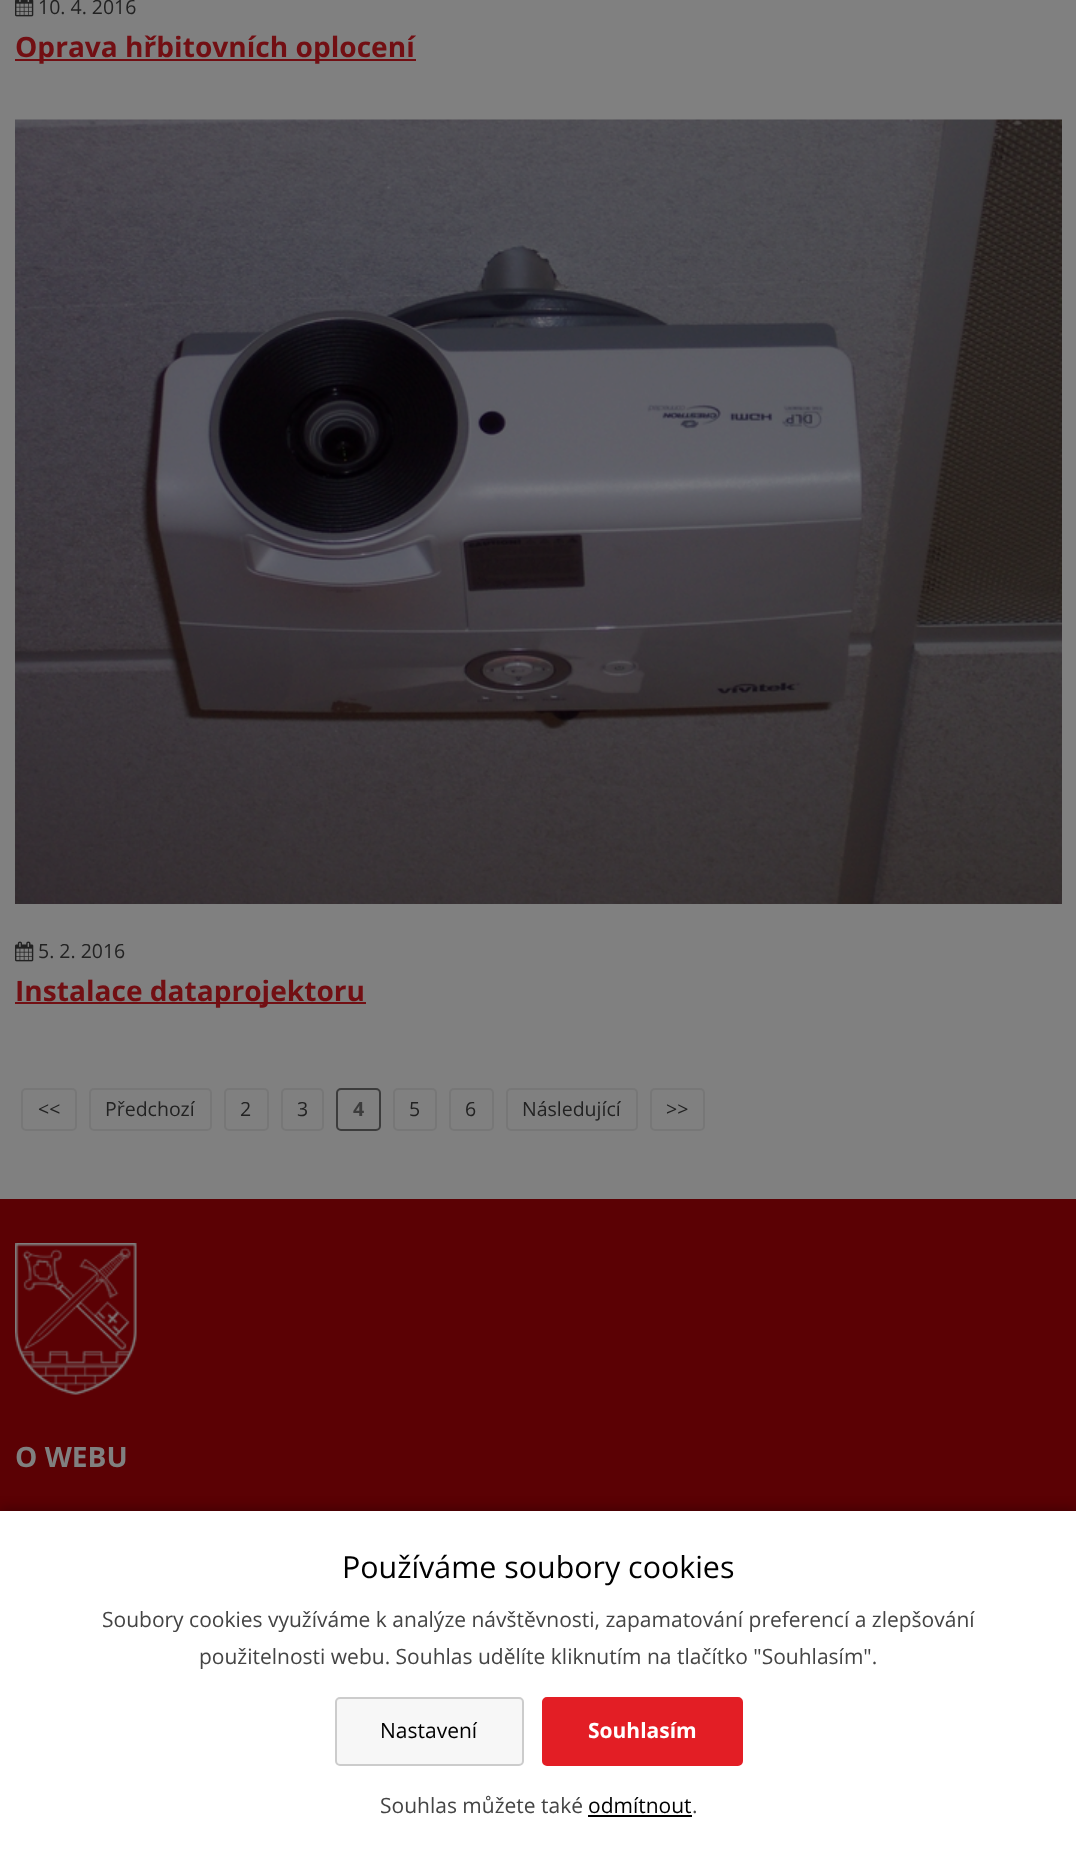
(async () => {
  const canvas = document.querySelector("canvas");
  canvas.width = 1076;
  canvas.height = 1876;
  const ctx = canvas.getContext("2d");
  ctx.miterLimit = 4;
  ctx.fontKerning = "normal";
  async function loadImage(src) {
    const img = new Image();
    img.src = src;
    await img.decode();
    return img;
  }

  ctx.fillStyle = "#808080";
  ctx.fillRect(0, 0, 1076, 1876);
  ctx.drawImage(await loadImage("img/1.png"), 15, 0, 19, 17);
  ctx.fillStyle = "#720f13";
  ctx.fillRect(15, 59, 401, 2);
  ctx.drawImage(await loadImage("img/2.png"), 15, 119, 1047, 785);
  ctx.drawImage(await loadImage("img/3.png"), 15, 941, 19, 21);
  ctx.fillRect(15, 1002, 351, 2);
  ctx.beginPath();
  ctx.roundRect(22, 1089, 54, 41, 4);
  ctx.strokeStyle = "#777777";
  ctx.lineWidth = 2;
  ctx.stroke();
  ctx.beginPath();
  ctx.roundRect(90, 1089, 121, 41, 4);
  ctx.stroke();
  ctx.beginPath();
  ctx.roundRect(225, 1089, 43, 41, 4);
  ctx.stroke();
  ctx.beginPath();
  ctx.roundRect(282, 1089, 41, 41, 4);
  ctx.stroke();
  ctx.beginPath();
  ctx.roundRect(337, 1089, 43, 41, 4);
  ctx.strokeStyle = "#3c3c3c";
  ctx.stroke();
  ctx.beginPath();
  ctx.roundRect(394, 1089, 42, 41, 4);
  ctx.strokeStyle = "#777777";
  ctx.stroke();
  ctx.beginPath();
  ctx.roundRect(450, 1089, 43, 41, 4);
  ctx.stroke();
  ctx.beginPath();
  ctx.roundRect(507, 1089, 130, 41, 4);
  ctx.stroke();
  ctx.beginPath();
  ctx.roundRect(651, 1089, 53, 41, 4);
  ctx.stroke();
  ctx.fillStyle = "#5b0104";
  ctx.fillRect(0, 1199, 1076, 312);
  ctx.drawImage(await loadImage("img/4.png"), 15, 1243, 122, 152);
  ctx.fillStyle = "rgba(0, 0, 0, 0.25)";
  ctx.filter = "blur(6px)";
  ctx.beginPath();
  ctx.rect(0, 1508, 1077, 366);
  ctx.fill();
  ctx.filter = "none";
  ctx.fillStyle = "#ffffff";
  ctx.fillRect(0, 1511, 1076, 365);
  ctx.fillStyle = "#f7f7f7";
  ctx.beginPath();
  ctx.roundRect(336, 1698, 187, 67, 4);
  ctx.fill();
  ctx.strokeStyle = "#cccccc";
  ctx.stroke();
  ctx.fillStyle = "#e31e25";
  ctx.beginPath();
  ctx.roundRect(543, 1698, 199, 67, 4);
  ctx.fill();
  ctx.strokeStyle = "#e31e25";
  ctx.stroke();
  ctx.fillStyle = "#000000";
  ctx.fillRect(588, 1815, 104, 2);
  ctx.font = "19.5px Open Sans";
  ctx.fillStyle = "#222222";
  ctx.fillText("10. 4. 2016", 38, 14);
  ctx.font = "bold 28.1px Open Sans";
  ctx.fillStyle = "#720f13";
  ctx.fillText("Oprava hřbitovních oplocení", 15, 57);
  ctx.font = "19.5px Open Sans";
  ctx.fillStyle = "#222222";
  ctx.fillText("5. 2. 2016", 38, 958);
  ctx.font = "bold 28.1px Open Sans";
  ctx.fillStyle = "#720f13";
  ctx.fillText("Instalace dataprojektoru", 15, 1001);
  ctx.font = "19.5px Open Sans";
  ctx.fillStyle = "#222222";
  for (const [text, x, y] of [
    ["<<", 38, 1116],
    ["Předchozí", 105, 1116],
    ["2", 240, 1116],
    ["3", 297, 1116],
  ]) {
    ctx.fillText(text, x, y);
  }
  ctx.font = "bold 19.5px Open Sans";
  ctx.fillStyle = "#3c3c3c";
  ctx.fillText("4", 353, 1116);
  ctx.font = "19.5px Open Sans";
  ctx.fillStyle = "#222222";
  for (const [text, x, y] of [
    ["5", 409, 1116],
    ["6", 465, 1116],
    ["Následující", 522, 1116],
    [">>", 666, 1116],
  ]) {
    ctx.fillText(text, x, y);
  }
  ctx.font = "bold 28.1px Open Sans";
  ctx.fillStyle = "#808080";
  ctx.fillText("O WEBU", 15, 1467);
  ctx.font = "30.4px Open Sans";
  ctx.fillStyle = "#000000";
  ctx.fillText("Používáme soubory cookies", 342, 1578);
  ctx.font = "21px Open Sans";
  ctx.fillStyle = "#444444";
  ctx.fillText("Soubory cookies využíváme k analýze návštěvnosti, zapamatování preferencí a zlepšování", 102, 1627);
  ctx.fillText("použitelnosti webu. Souhlas udělíte kliknutím na tlačítko \"Souhlasím\".", 199, 1664);
  ctx.fillStyle = "#000000";
  ctx.fillText("Nastavení", 380, 1738);
  ctx.font = "bold 21px Open Sans";
  ctx.fillStyle = "#ffffff";
  ctx.fillText("Souhlasím", 588, 1738);
  ctx.font = "21px Open Sans";
  ctx.fillStyle = "#444444";
  ctx.fillText("Souhlas můžete také", 380, 1813);
  ctx.fillStyle = "#000000";
  ctx.fillText("odmítnout", 588, 1813);
  ctx.fillStyle = "#444444";
  ctx.fillText(".", 692, 1813);
})();
